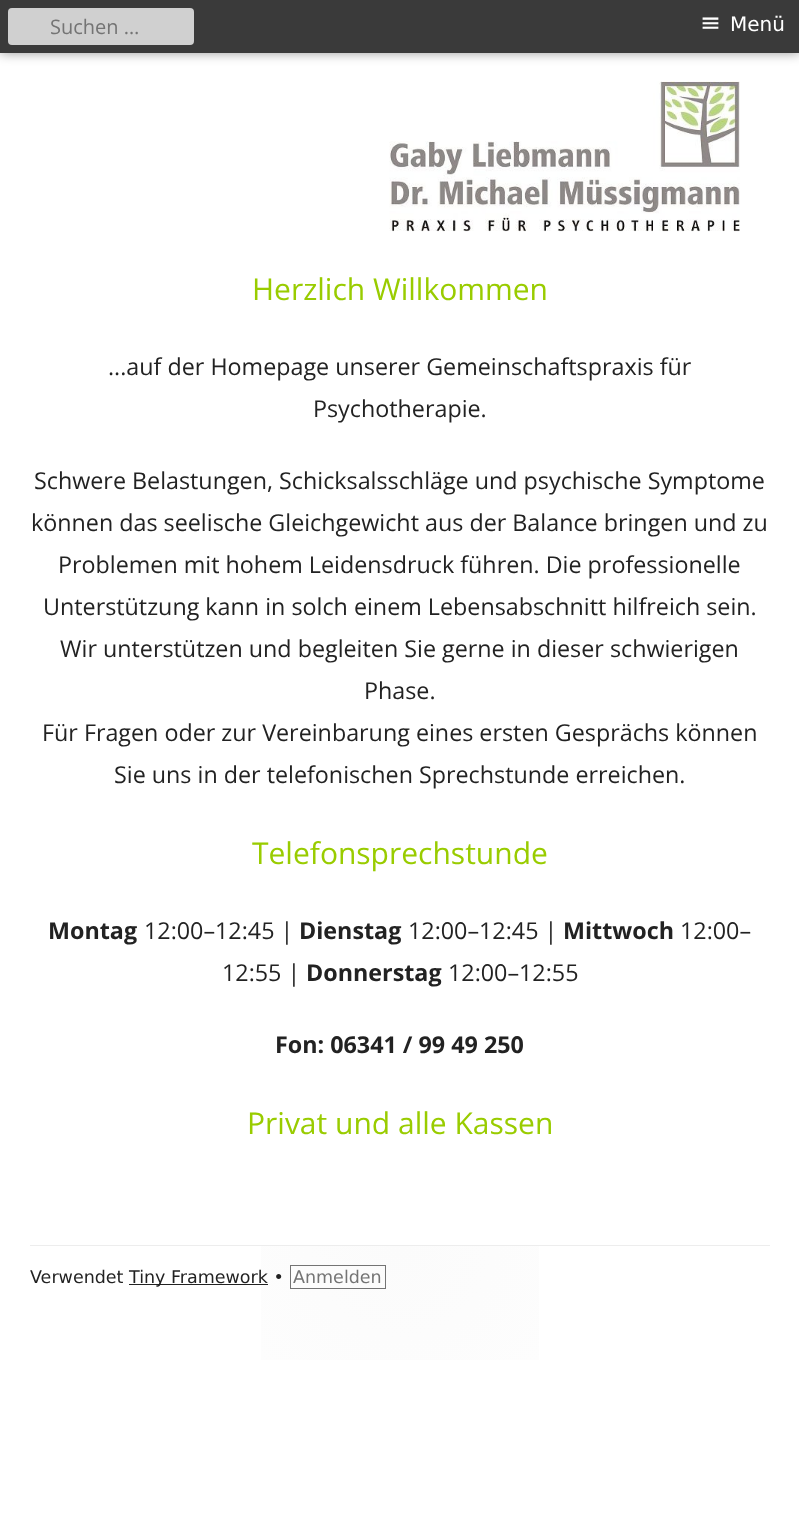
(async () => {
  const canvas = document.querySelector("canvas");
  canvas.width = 799;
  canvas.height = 1523;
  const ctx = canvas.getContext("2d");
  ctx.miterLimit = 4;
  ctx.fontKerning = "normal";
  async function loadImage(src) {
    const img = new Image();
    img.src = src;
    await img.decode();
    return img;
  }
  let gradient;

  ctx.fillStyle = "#ffffff";
  ctx.fillRect(0, 0, 799, 1523);
  ctx.fillStyle = "rgba(0, 0, 0, 0.4)";
  ctx.filter = "blur(6px)";
  ctx.beginPath();
  ctx.rect(0, 0, 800, 53);
  ctx.fill();
  ctx.filter = "none";
  ctx.fillStyle = "#3a3a3a";
  ctx.fillRect(0, 0, 799, 53);
  ctx.fillStyle = "#d0d0d0";
  ctx.beginPath();
  ctx.roundRect(8, 8, 186, 37, 4);
  ctx.fill();
  ctx.drawImage(await loadImage("img/1.png"), 389, 81, 351, 151);
  gradient = ctx.createRadialGradient(400, 1246, 0, 400, 1246, 370);
  gradient.addColorStop(0, "#fbfbfb");
  gradient.addColorStop(1, "#ffffff");
  ctx.fillStyle = gradient;
  ctx.fillRect(261, 1246, 278, 114);
  ctx.fillStyle = "#ededed";
  ctx.fillRect(30, 1245, 740, 1);
  ctx.fillStyle = "#222222";
  ctx.fillRect(129, 1284, 139, 1);
  ctx.strokeStyle = "#747474";
  ctx.strokeRect(290.5, 1265.5, 95, 23);
  ctx.font = "20px Open Sans";
  ctx.fillStyle = "#747474";
  ctx.fillText("Suchen …", 50, 34);
  ctx.font = "25px DejaVu Sans";
  ctx.fillStyle = "#ffffff";
  ctx.fillText("≡", 700, 31);
  ctx.font = "20px DejaVu Sans";
  ctx.fillText("Menü", 730, 31);
  ctx.font = "30px Open Sans";
  ctx.fillStyle = "#99cc00";
  ctx.fillText("Herzlich Willkommen", 252, 300);
  ctx.font = "23.3px Open Sans";
  ctx.fillStyle = "#222222";
  for (const [text, x, y] of [
    ["...auf der Homepage unserer Gemeinschaftspraxis für", 108, 375],
    ["Psychotherapie.", 313, 417],
    ["Schwere Belastungen, Schicksalsschläge und psychische Symptome", 34, 489],
    ["können das seelische Gleichgewicht aus der Balance bringen und zu", 31, 531],
    ["Problemen mit hohem Leidensdruck führen. Die professionelle", 58, 573],
    ["Unterstützung kann in solch einem Lebensabschnitt hilfreich sein.", 43, 615],
    ["Wir unterstützen und begleiten Sie gerne in dieser schwierigen", 60, 657],
    ["Phase.", 364, 699],
    ["Für Fragen oder zur Vereinbarung eines ersten Gesprächs können", 42, 741],
    ["Sie uns in der telefonischen Sprechstunde erreichen.", 114, 783],
  ]) {
    ctx.fillText(text, x, y);
  }
  ctx.font = "30px Open Sans";
  ctx.fillStyle = "#99cc00";
  ctx.fillText("Telefonsprechstunde", 252, 864);
  ctx.font = "bold 23.3px Open Sans";
  ctx.fillStyle = "#222222";
  ctx.fillText("Montag", 48, 939);
  ctx.font = "23.3px Open Sans";
  ctx.fillText("12:00–12:45 |", 144, 939);
  ctx.font = "bold 23.3px Open Sans";
  ctx.fillText("Dienstag", 299, 939);
  ctx.font = "23.3px Open Sans";
  ctx.fillText("12:00–12:45 |", 408, 939);
  ctx.font = "bold 23.3px Open Sans";
  ctx.fillText("Mittwoch", 563, 939);
  ctx.font = "23.3px Open Sans";
  ctx.fillText("12:00–", 680, 939);
  ctx.fillText("12:55 |", 222, 981);
  ctx.font = "bold 23.3px Open Sans";
  ctx.fillText("Donnerstag", 306, 981);
  ctx.font = "23.3px Open Sans";
  ctx.fillText("12:00–12:55", 448, 981);
  ctx.font = "bold 23.3px Open Sans";
  ctx.fillText("Fon: 06341 / 99 49 250", 275, 1053);
  ctx.font = "30px Open Sans";
  ctx.fillStyle = "#99cc00";
  ctx.fillText("Privat und alle Kassen", 247, 1134);
  ctx.font = "17.5px DejaVu Sans";
  ctx.fillStyle = "#222222";
  ctx.fillText("Verwendet", 30, 1283);
  ctx.fillText("Tiny Framework •", 129, 1283);
  ctx.fillStyle = "#747474";
  ctx.fillText("Anmelden", 293, 1283);
})();
